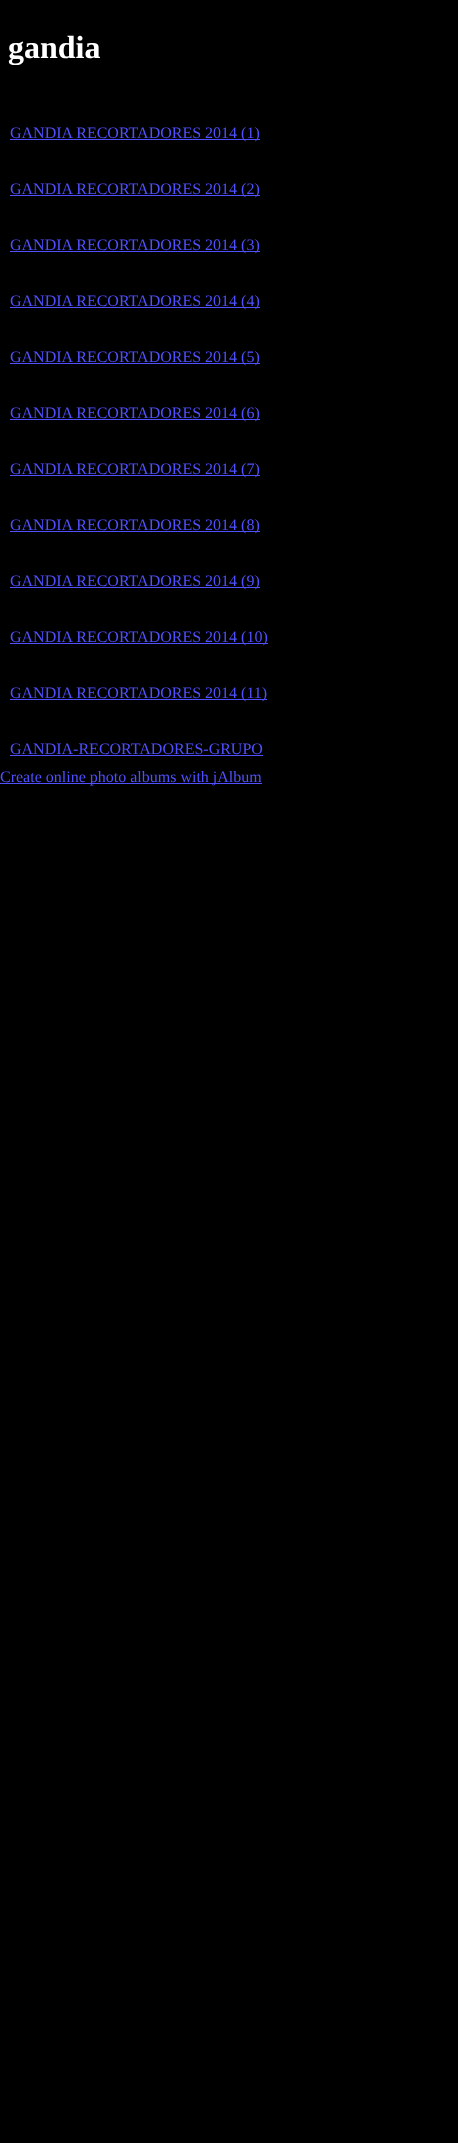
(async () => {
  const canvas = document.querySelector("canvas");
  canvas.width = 458;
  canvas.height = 2143;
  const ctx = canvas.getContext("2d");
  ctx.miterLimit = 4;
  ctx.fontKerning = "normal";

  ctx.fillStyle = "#000000";
  ctx.fillRect(0, 0, 458, 2143);
  for (const [x, y, w, h, color] of [
    [10, 139, 250, 1, "#5050ff"],
    [10, 195, 250, 1, "#5050ff"],
    [10, 251, 250, 1, "#5050ff"],
    [10, 307, 250, 1, "#5050ff"],
    [10, 363, 250, 1, "#5050ff"],
    [10, 419, 250, 1, "#5050ff"],
    [10, 475, 250, 1, "#5050ff"],
    [10, 531, 250, 1, "#5050ff"],
    [10, 587, 250, 1, "#5050ff"],
    [10, 643, 258, 1, "#5050ff"],
    [10, 699, 257, 1, "#5050ff"],
    [10, 755, 253, 1, "#5050ff"],
    [0, 783, 262, 1, "#5050ff"],
  ]) {
    ctx.fillStyle = color;
    ctx.fillRect(x, y, w, h);
  }
  ctx.font = "bold 32px Liberation Serif";
  ctx.fillStyle = "#ffffff";
  ctx.fillText("gandia", 8, 58);
  ctx.font = "16px Liberation Serif";
  ctx.fillStyle = "#5050ff";
  for (const [text, x, y] of [
    ["GANDIA RECORTADORES 2014 (1)", 10, 138],
    ["GANDIA RECORTADORES 2014 (2)", 10, 194],
    ["GANDIA RECORTADORES 2014 (3)", 10, 250],
    ["GANDIA RECORTADORES 2014 (4)", 10, 306],
    ["GANDIA RECORTADORES 2014 (5)", 10, 362],
    ["GANDIA RECORTADORES 2014 (6)", 10, 418],
    ["GANDIA RECORTADORES 2014 (7)", 10, 474],
    ["GANDIA RECORTADORES 2014 (8)", 10, 530],
    ["GANDIA RECORTADORES 2014 (9)", 10, 586],
    ["GANDIA RECORTADORES 2014 (10)", 10, 642],
    ["GANDIA RECORTADORES 2014 (11)", 10, 698],
    ["GANDIA-RECORTADORES-GRUPO", 10, 754],
    ["Create online photo albums with jAlbum", 0, 782],
  ]) {
    ctx.fillText(text, x, y);
  }
})();
